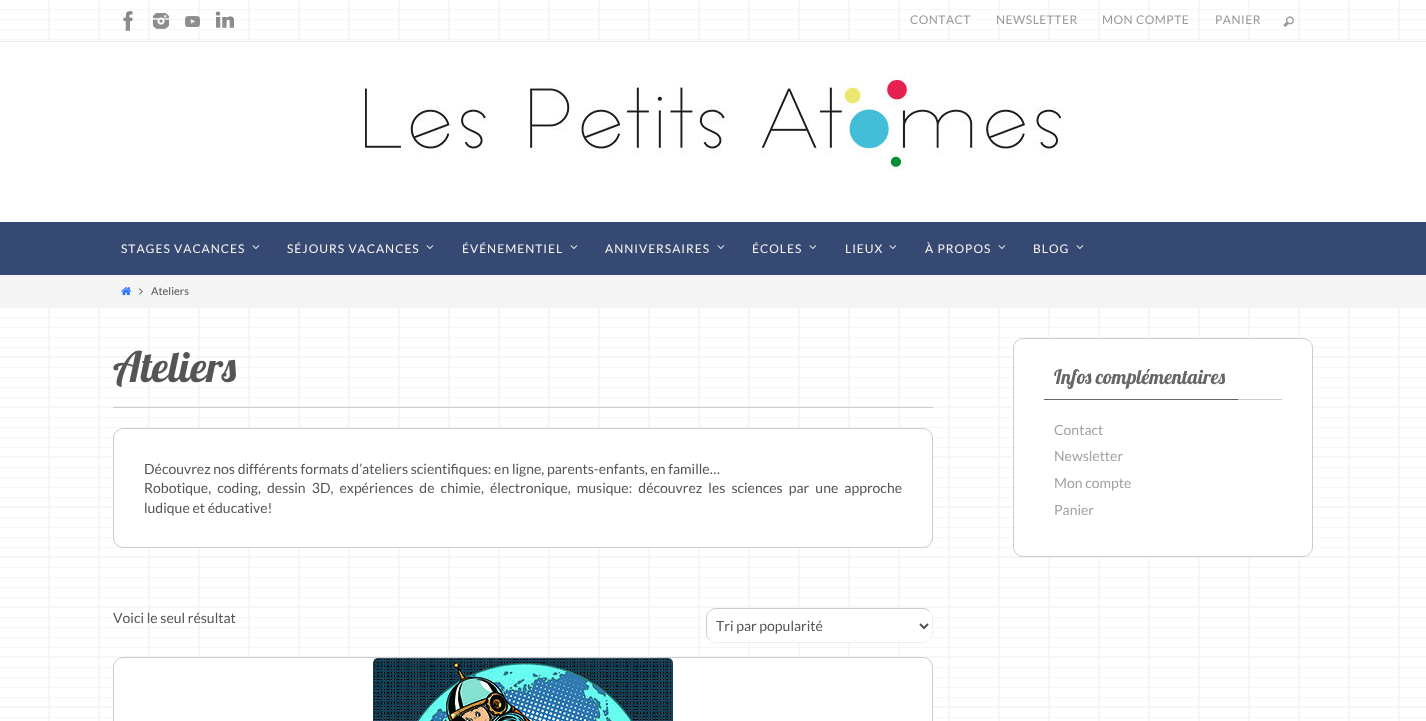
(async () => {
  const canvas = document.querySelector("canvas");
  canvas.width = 1426;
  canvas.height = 721;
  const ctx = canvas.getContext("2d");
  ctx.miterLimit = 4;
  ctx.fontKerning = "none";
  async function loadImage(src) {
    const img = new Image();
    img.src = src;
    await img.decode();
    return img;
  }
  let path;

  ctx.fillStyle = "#ffffff";
  ctx.fillRect(0, 0, 1426, 721);
  for (const [x, y, w, h, color] of [
    [0, 9, 1426, 1, "#f6f6f6"],
    [0, 19, 1426, 1, "#f6f6f6"],
    [0, 29, 1426, 1, "#f6f6f6"],
    [0, 39, 1426, 1, "#f6f6f6"],
  ]) {
    ctx.fillStyle = color;
    ctx.fillRect(x, y, w, h);
  }
  ctx.drawImage(await loadImage("img/1.png"), 48, 0, 1352, 41);
  ctx.fillStyle = "#ebebeb";
  ctx.fillRect(0, 41, 1426, 1);
  ctx.drawImage(await loadImage("img/2.png"), 123, 11, 10, 20);
  ctx.drawImage(await loadImage("img/3.png"), 153, 13, 16, 16);
  ctx.drawImage(await loadImage("img/4.png"), 185, 16, 15, 11);
  ctx.drawImage(await loadImage("img/5.png"), 215, 11, 19, 17);
  ctx.drawImage(await loadImage("img/6.png"), 1283, 16, 11, 11);
  ctx.drawImage(await loadImage("img/7.png"), 361, 74, 704, 96);
  ctx.fillStyle = "#364973";
  ctx.fillRect(0, 222, 1426, 53);
  ctx.drawImage(await loadImage("img/8.png"), 252, 245, 8, 4);
  ctx.drawImage(await loadImage("img/8.png"), 426, 245, 8, 4);
  ctx.drawImage(await loadImage("img/8.png"), 570, 245, 8, 4);
  ctx.drawImage(await loadImage("img/8.png"), 717, 245, 8, 4);
  ctx.drawImage(await loadImage("img/8.png"), 809, 245, 8, 4);
  ctx.drawImage(await loadImage("img/8.png"), 889, 245, 8, 4);
  ctx.drawImage(await loadImage("img/8.png"), 998, 245, 8, 4);
  ctx.drawImage(await loadImage("img/8.png"), 1076, 245, 8, 4);
  ctx.fillStyle = "#f5f5f5";
  ctx.fillRect(0, 275, 1426, 33);
  ctx.drawImage(await loadImage("img/9.png"), 121, 287, 11, 9);
  ctx.drawImage(await loadImage("img/10.png"), 139, 288, 4, 7);
  ctx.drawImage(await loadImage("img/11.png"), 0, 317, 1426, 401);
  ctx.drawImage(await loadImage("img/12.png"), 48, 308, 1352, 413);
  for (const [x, y, w, h, color] of [
    [0, 356, 1426, 1, "#f6f6f6"],
    [0, 406, 1426, 1, "#f6f6f6"],
    [0, 456, 1426, 1, "#f6f6f6"],
    [0, 506, 1426, 1, "#f6f6f6"],
    [0, 556, 1426, 1, "#f6f6f6"],
    [0, 606, 1426, 1, "#f6f6f6"],
    [0, 656, 1426, 1, "#f6f6f6"],
    [0, 706, 1426, 1, "#f6f6f6"],
    [113, 407, 820, 1, "#cccccc"],
  ]) {
    ctx.fillStyle = color;
    ctx.fillRect(x, y, w, h);
  }
  ctx.fillStyle = "#ffffff";
  ctx.beginPath();
  ctx.roundRect(113.5, 428.5, 819, 119, 9.5);
  ctx.fill();
  ctx.strokeStyle = "#cccccc";
  ctx.stroke();
  ctx.beginPath();
  ctx.roundRect(706, 608, 227, 35, 10);
  ctx.fill();
  path = new Path2D("M929.5 611.5C931.5 613 932.5 615.5 932.5 618V633C932.5 635.5 931.5 638 929.5 639.5C928 641.5 925.5 642.5 923 642.5H716C713.5 642.5 711 641.5 709.5 639.5");
  ctx.strokeStyle = "#eeeeee";
  ctx.stroke(path);
  path = new Path2D("M709.5 639.5C707.5 638 706.5 635.5 706.5 633V618C706.5 615.5 707.5 613 709.5 611.5C711 609.5 713.5 608.5 716 608.5H923C925.5 608.5 928 609.5 929.5 611.5");
  ctx.strokeStyle = "#cccccc";
  ctx.stroke(path);
  path = new Path2D("M920 624L924 628L928 624");
  ctx.strokeStyle = "#555555";
  ctx.lineWidth = 2;
  ctx.stroke(path);
  ctx.beginPath();
  ctx.roundRect(113.5, 657.5, 819, 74, 9.5);
  ctx.fill();
  ctx.strokeStyle = "#cccccc";
  ctx.lineWidth = 1;
  ctx.stroke();
  ctx.drawImage(await loadImage("img/13.png"), 373, 658, 300, 63);
  ctx.beginPath();
  ctx.roundRect(1013.5, 338.5, 299, 218, 9.5);
  ctx.fill();
  ctx.stroke();
  ctx.fillStyle = "#cccccc";
  ctx.fillRect(1238, 399, 44, 1);
  ctx.fillStyle = "#666666";
  ctx.fillRect(1044, 399, 194, 1);
  ctx.letterSpacing = "0.5px";
  ctx.font = "12px Lato";
  ctx.fillStyle = "#999999";
  for (const [text, x, y] of [
    ["CONTACT", 910, 24],
    ["NEWSLETTER", 996, 24],
    ["MON COMPTE", 1102, 24],
    ["PANIER", 1215, 24],
  ]) {
    ctx.fillText(text, x, y);
  }
  ctx.letterSpacing = "1px";
  ctx.fillStyle = "#f7f4f2";
  for (const [text, x, y] of [
    ["STAGES VACANCES", 121, 253],
    ["SÉJOURS VACANCES", 287, 253],
    ["ÉVÉNEMENTIEL", 462, 253],
    ["ANNIVERSAIRES", 605, 253],
    ["ÉCOLES", 752, 253],
    ["LIEUX", 845, 253],
    ["À PROPOS", 925, 253],
    ["BLOG", 1033, 253],
  ]) {
    ctx.fillText(text, x, y);
  }
  ctx.letterSpacing = "0px";
  ctx.font = "11px Lato";
  ctx.fillStyle = "#555555";
  ctx.fillText("Ateliers", 151, 295);
  ctx.font = "42px Lobster";
  ctx.fillText("Ateliers", 113, 382);
  ctx.font = "14px Lato";
  ctx.fillText("Découvrez nos différents formats d’ateliers scientifiques: en ligne, parents-enfants, en famille…", 144, 474);
  ctx.wordSpacing = "3.4px";
  ctx.fillText("Robotique, coding, dessin 3D, expériences de chimie, électronique, musique: découvrez les sciences par une approche", 144, 493);
  ctx.wordSpacing = "0px";
  for (const [text, x, y] of [
    ["ludique et éducative!", 144, 513],
    ["Voici le seul résultat", 113, 623],
    ["Tri par popularité", 716, 631],
  ]) {
    ctx.fillText(text, x, y);
  }
  ctx.font = "20px Lobster";
  ctx.fillStyle = "#666666";
  ctx.fillText("Infos complémentaires", 1054, 384);
  ctx.font = "14px Lato";
  ctx.fillStyle = "#a2a2a2";
  for (const [text, x, y] of [
    ["Contact", 1054, 435],
    ["Newsletter", 1054, 461],
    ["Mon compte", 1054, 488],
    ["Panier", 1054, 515],
  ]) {
    ctx.fillText(text, x, y);
  }
})();
